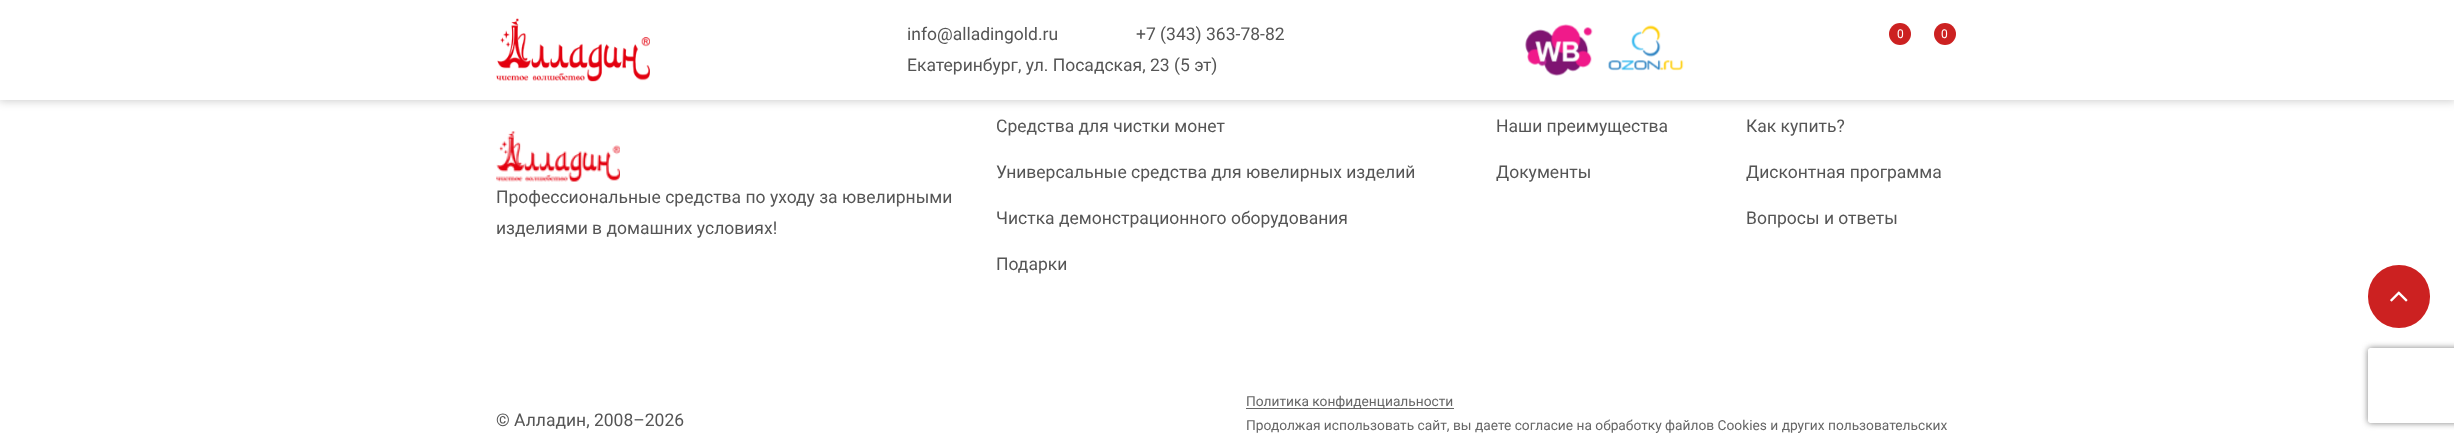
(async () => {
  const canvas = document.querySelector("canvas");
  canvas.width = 2454;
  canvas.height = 439;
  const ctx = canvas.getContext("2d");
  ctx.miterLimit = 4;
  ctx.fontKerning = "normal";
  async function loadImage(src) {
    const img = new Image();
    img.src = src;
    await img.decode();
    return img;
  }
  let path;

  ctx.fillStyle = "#ffffff";
  ctx.fillRect(0, 0, 2454, 439);
  ctx.fillStyle = "rgba(0, 0, 0, 0.2)";
  ctx.filter = "blur(5px)";
  ctx.beginPath();
  ctx.rect(-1, -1, 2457, 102);
  ctx.fill();
  ctx.filter = "none";
  ctx.fillStyle = "#ffffff";
  ctx.fillRect(0, 0, 2454, 100);
  ctx.drawImage(await loadImage("img/1.png"), 496, 18, 154, 64);
  ctx.drawImage(await loadImage("img/2.png"), 1525, 24, 68, 52);
  ctx.drawImage(await loadImage("img/3.png"), 1608, 25, 76, 46);
  ctx.fillStyle = "#cc2121";
  ctx.beginPath();
  ctx.arc(1900, 34, 11, 0, Math.PI * 2);
  ctx.fill();
  ctx.beginPath();
  ctx.arc(1945, 34, 11, 0, Math.PI * 2);
  ctx.fill();
  ctx.drawImage(await loadImage("img/4.png"), 496, 131, 124, 51);
  ctx.fillStyle = "#666666";
  ctx.fillRect(1246, 408, 208, 1);
  ctx.fillStyle = "#cc2121";
  ctx.beginPath();
  ctx.roundRect(2368, 265, 62, 63, 31);
  ctx.fill();
  ctx.drawImage(await loadImage("img/5.png"), 2390, 291, 18, 11);
  ctx.save();
  path = new Path2D("M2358 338H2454V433H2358ZM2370.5 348H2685.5C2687 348 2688 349 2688 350.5V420.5C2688 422 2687 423 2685.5 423H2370.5C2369 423 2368 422 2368 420.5V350.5C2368 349 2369 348 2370.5 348Z");
  ctx.clip(path, "evenodd");
  ctx.fillStyle = "#808080";
  ctx.filter = "blur(3px)";
  ctx.beginPath();
  ctx.roundRect(2368, 348, 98, 75, 2.5);
  ctx.fill();
  ctx.filter = "none";
  ctx.restore();
  ctx.font = "17.5px Roboto";
  ctx.fillStyle = "#555555";
  for (const [text, x, y] of [
    ["info@alladingold.ru", 907, 40],
    ["+7 (343) 363-78-82", 1136, 40],
    ["Екатеринбург, ул. Посадская, 23 (5 эт)", 907, 71],
  ]) {
    ctx.fillText(text, x, y);
  }
  ctx.font = "12px Roboto";
  ctx.fillStyle = "#ffffff";
  ctx.fillText("0", 1897, 38);
  ctx.fillText("0", 1941, 38);
  ctx.font = "17.5px Roboto";
  ctx.fillStyle = "#555555";
  for (const [text, x, y] of [
    ["Профессиональные средства по уходу за ювелирными", 496, 203],
    ["изделиями в домашних условиях!", 496, 234],
    ["Средства для чистки монет", 996, 132],
    ["Универсальные средства для ювелирных изделий", 996, 178],
    ["Чистка демонстрационного оборудования", 996, 224],
    ["Подарки", 996, 270],
    ["Наши преимущества", 1496, 132],
    ["Документы", 1496, 178],
    ["Как купить?", 1746, 132],
    ["Дисконтная программа", 1746, 178],
    ["Вопросы и ответы", 1746, 224],
    ["© Алладин, 2008–2026", 496, 426],
  ]) {
    ctx.fillText(text, x, y);
  }
  ctx.font = "13.75px Roboto";
  ctx.fillStyle = "#666666";
  ctx.fillText("Политика конфиденциальности", 1246, 406);
  ctx.fillText("Продолжая использовать сайт, вы даете согласие на обработку файлов Cookies и других пользовательских", 1246, 430);
})();
